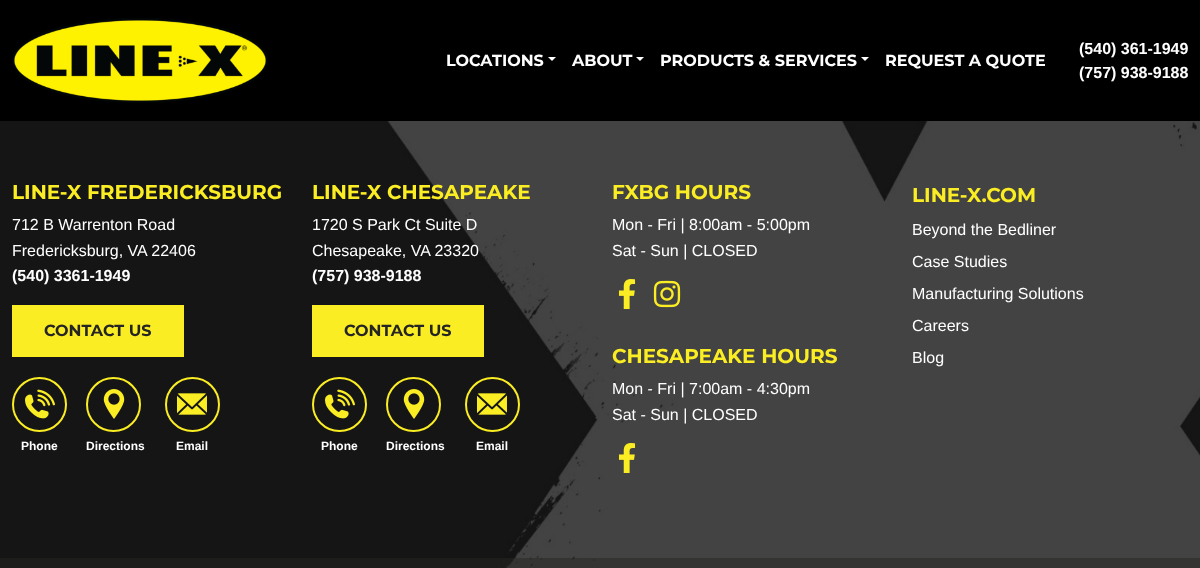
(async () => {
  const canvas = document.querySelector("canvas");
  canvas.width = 1200;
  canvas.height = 568;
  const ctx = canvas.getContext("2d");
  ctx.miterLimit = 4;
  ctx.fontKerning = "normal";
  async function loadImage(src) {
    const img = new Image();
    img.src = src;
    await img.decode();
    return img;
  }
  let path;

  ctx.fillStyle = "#ffffff";
  ctx.fillRect(0, 0, 1200, 568);
  ctx.fillStyle = "#000000";
  ctx.fillRect(0, 0, 1200, 121);
  ctx.drawImage(await loadImage("img/1.png"), 12, 18, 256, 85);
  ctx.fillStyle = "#ffffff";
  path = new Path2D("M548 57H556L552 61Z");
  ctx.fill(path);
  path = new Path2D("M636 57H644L640 61Z");
  ctx.fill(path);
  path = new Path2D("M861 57H869L865 61Z");
  ctx.fill(path);
  ctx.drawImage(await loadImage("img/2.png"), 0, 121, 1200, 447);
  ctx.fillStyle = "#fbed23";
  ctx.fillRect(12, 305, 172, 52);
  ctx.beginPath();
  ctx.arc(39.5, 404.5, 26.5, 0, Math.PI * 2);
  ctx.strokeStyle = "#fbed23";
  ctx.lineWidth = 2;
  ctx.stroke();
  ctx.drawImage(await loadImage("img/3.png"), 25, 389, 30, 30);
  ctx.beginPath();
  ctx.arc(113.5, 404.5, 26.5, 0, Math.PI * 2);
  ctx.stroke();
  ctx.drawImage(await loadImage("img/4.png"), 103, 389, 22, 30);
  ctx.beginPath();
  ctx.arc(192.5, 404.5, 26.5, 0, Math.PI * 2);
  ctx.stroke();
  ctx.drawImage(await loadImage("img/5.png"), 177, 393, 30, 22);
  ctx.fillRect(312, 305, 172, 52);
  ctx.beginPath();
  ctx.arc(339.5, 404.5, 26.5, 0, Math.PI * 2);
  ctx.stroke();
  ctx.drawImage(await loadImage("img/3.png"), 325, 389, 30, 30);
  ctx.beginPath();
  ctx.arc(413.5, 404.5, 26.5, 0, Math.PI * 2);
  ctx.stroke();
  ctx.drawImage(await loadImage("img/4.png"), 403, 389, 22, 30);
  ctx.beginPath();
  ctx.arc(492.5, 404.5, 26.5, 0, Math.PI * 2);
  ctx.stroke();
  ctx.drawImage(await loadImage("img/5.png"), 477, 393, 30, 22);
  ctx.drawImage(await loadImage("img/6.png"), 618, 279, 18, 30);
  ctx.drawImage(await loadImage("img/7.png"), 653, 280, 28, 28);
  ctx.drawImage(await loadImage("img/6.png"), 618, 443, 18, 30);
  ctx.fillStyle = "rgba(37, 37, 36, 0.5)";
  ctx.fillRect(0, 558, 1200, 10);
  ctx.font = "100 16px Montserrat";
  ctx.fillStyle = "#ffffff";
  for (const [text, x, y] of [
    ["LOCATIONS", 446, 66],
    ["ABOUT", 572, 66],
    ["PRODUCTS & SERVICES", 660, 66],
    ["REQUEST A QUOTE", 885, 66],
  ]) {
    ctx.fillText(text, x, y);
  }
  ctx.font = "bold 16px Liberation Sans";
  ctx.fillText("(540) 361-1949", 1079, 54);
  ctx.fillText("(757) 938-9188", 1079, 78);
  ctx.font = "100 20px Montserrat";
  ctx.fillStyle = "#fbed23";
  ctx.fillText("LINE-X FREDERICKSBURG", 12, 199);
  ctx.font = "16px Liberation Sans";
  ctx.fillStyle = "#ffffff";
  ctx.fillText("712 B Warrenton Road", 12, 230);
  ctx.fillText("Fredericksburg, VA 22406", 12, 256);
  ctx.font = "bold 16px Liberation Sans";
  ctx.fillText("(540) 3361-1949", 12, 281);
  ctx.font = "100 16px Montserrat";
  ctx.fillStyle = "#252525";
  ctx.fillText("CONTACT US", 44, 336);
  ctx.font = "bold 12px Liberation Sans";
  ctx.fillStyle = "#ffffff";
  for (const [text, x, y] of [
    ["Phone", 21, 450],
    ["Directions", 86, 450],
    ["Email", 176, 450],
  ]) {
    ctx.fillText(text, x, y);
  }
  ctx.font = "100 20px Montserrat";
  ctx.fillStyle = "#fbed23";
  ctx.fillText("LINE-X CHESAPEAKE", 312, 199);
  ctx.font = "16px Liberation Sans";
  ctx.fillStyle = "#ffffff";
  ctx.fillText("1720 S Park Ct Suite D", 312, 230);
  ctx.fillText("Chesapeake, VA 23320", 312, 256);
  ctx.font = "bold 16px Liberation Sans";
  ctx.fillText("(757) 938-9188", 312, 281);
  ctx.font = "100 16px Montserrat";
  ctx.fillStyle = "#252525";
  ctx.fillText("CONTACT US", 344, 336);
  ctx.font = "bold 12px Liberation Sans";
  ctx.fillStyle = "#ffffff";
  for (const [text, x, y] of [
    ["Phone", 321, 450],
    ["Directions", 386, 450],
    ["Email", 476, 450],
  ]) {
    ctx.fillText(text, x, y);
  }
  ctx.font = "100 20px Montserrat";
  ctx.fillStyle = "#fbed23";
  ctx.fillText("FXBG HOURS", 612, 199);
  ctx.font = "16px Liberation Sans";
  ctx.fillStyle = "#ffffff";
  ctx.fillText("Mon - Fri | 8:00am - 5:00pm", 612, 230);
  ctx.fillText("Sat - Sun | CLOSED", 612, 256);
  ctx.font = "100 20px Montserrat";
  ctx.fillStyle = "#fbed23";
  ctx.fillText("CHESAPEAKE HOURS", 612, 363);
  ctx.font = "16px Liberation Sans";
  ctx.fillStyle = "#ffffff";
  ctx.fillText("Mon - Fri | 7:00am - 4:30pm", 612, 394);
  ctx.fillText("Sat - Sun | CLOSED", 612, 420);
  ctx.font = "100 20px Montserrat";
  ctx.fillStyle = "#fbed23";
  ctx.fillText("LINE-X.COM", 912, 202);
  ctx.font = "16px Liberation Sans";
  ctx.fillStyle = "#ffffff";
  for (const [text, x, y] of [
    ["Beyond the Bedliner", 912, 235],
    ["Case Studies", 912, 267],
    ["Manufacturing Solutions", 912, 299],
    ["Careers", 912, 331],
    ["Blog", 912, 363],
  ]) {
    ctx.fillText(text, x, y);
  }
})();
